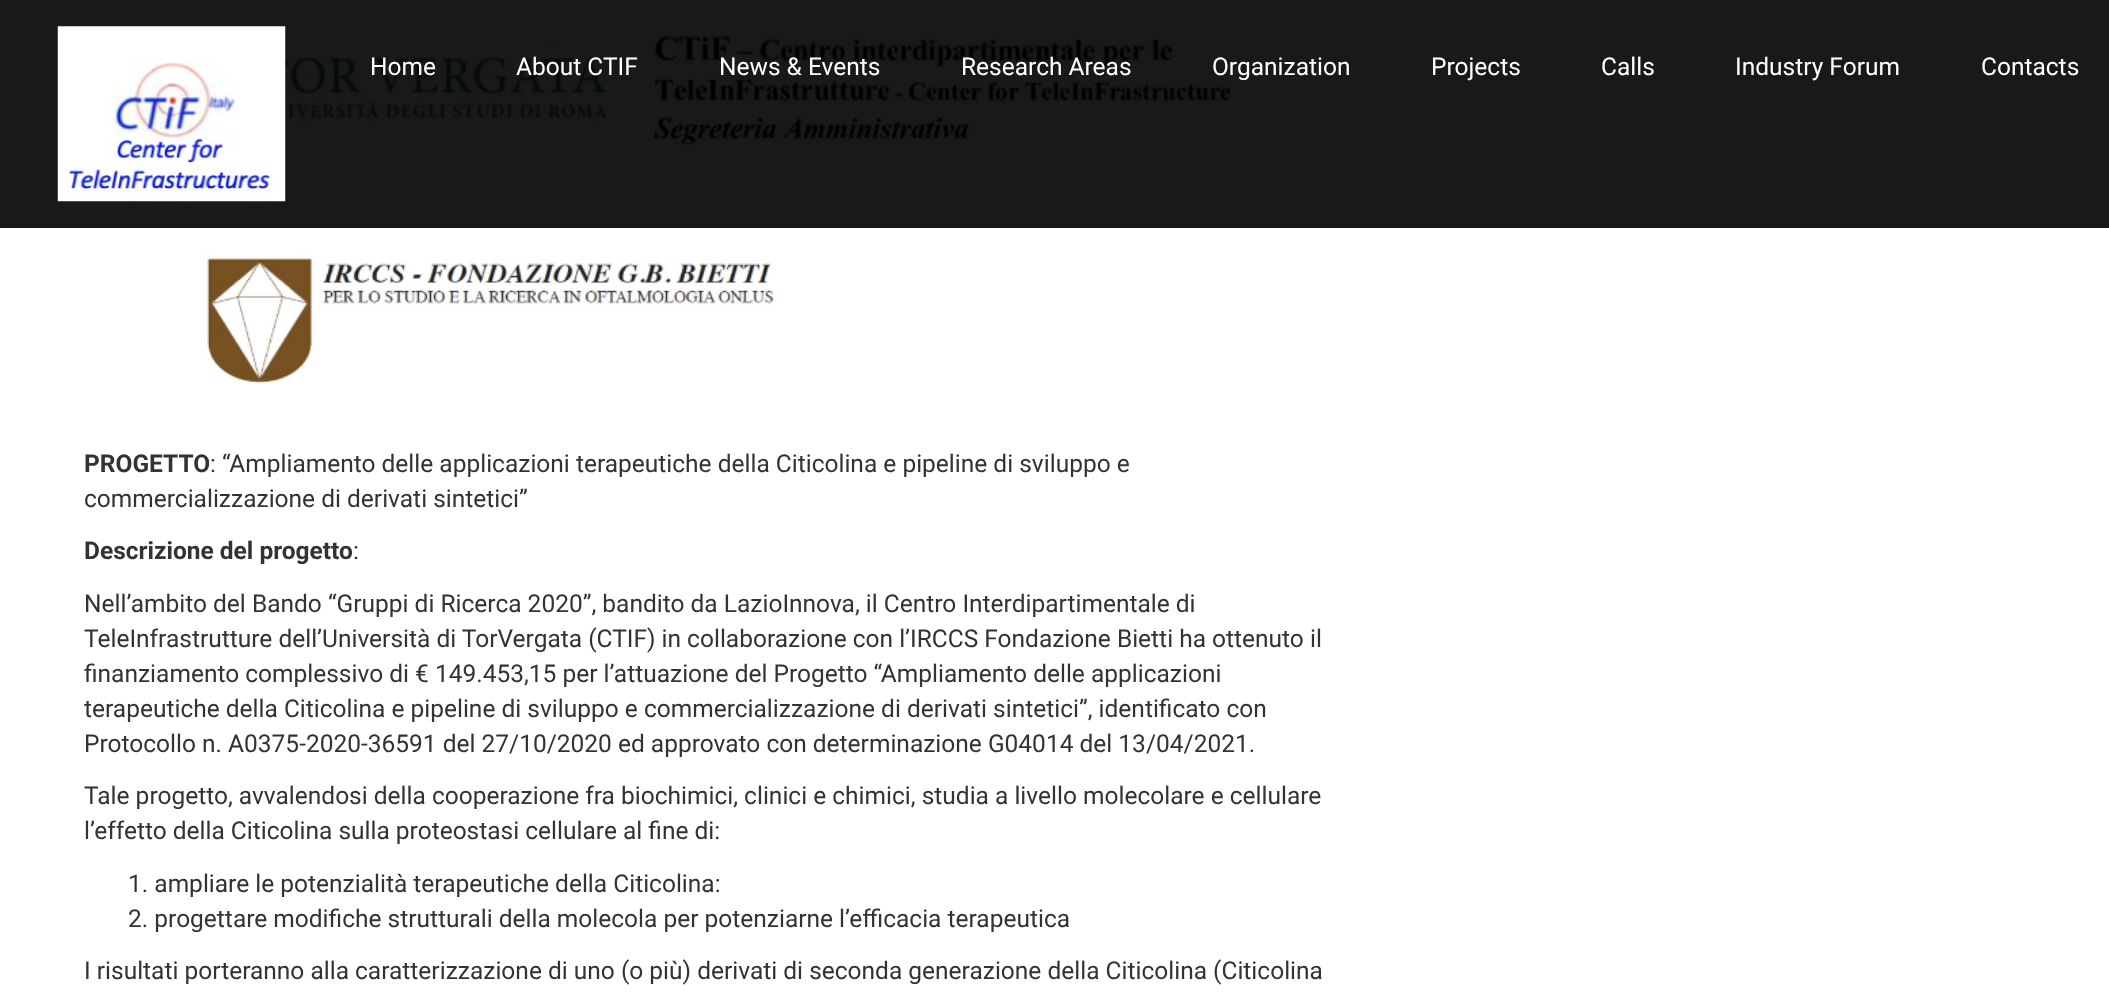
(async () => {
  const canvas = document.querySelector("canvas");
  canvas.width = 2109;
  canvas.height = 999;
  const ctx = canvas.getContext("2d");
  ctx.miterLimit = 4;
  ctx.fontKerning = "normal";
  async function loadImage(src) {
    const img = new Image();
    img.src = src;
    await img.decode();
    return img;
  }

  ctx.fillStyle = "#ffffff";
  ctx.fillRect(0, 0, 2109, 999);
  ctx.drawImage(await loadImage("img/2.png"), 137, 22, 1095, 362);
  ctx.fillStyle = "rgba(0, 0, 0, 0.9)";
  ctx.fillRect(0, 0, 2109, 228);
  ctx.drawImage(await loadImage("img/1.png"), 57, 26, 229, 176);
  ctx.font = "24.5px Roboto";
  ctx.fillStyle = "#ffffff";
  for (const [text, x, y] of [
    ["Home", 370, 75],
    ["About CTIF", 516, 75],
    ["News & Events", 719, 75],
    ["Research Areas", 961, 75],
    ["Organization", 1212, 75],
    ["Projects", 1431, 75],
    ["Calls", 1601, 75],
    ["Industry Forum", 1735, 75],
    ["Contacts", 1981, 75],
  ]) {
    ctx.fillText(text, x, y);
  }
  ctx.font = "bold 24.5px Roboto";
  ctx.fillStyle = "#333333";
  ctx.fillText("PROGETTO", 84, 472);
  ctx.font = "24.5px Roboto";
  ctx.fillText(": “Ampliamento delle applicazioni terapeutiche della Citicolina e pipeline di sviluppo e", 210, 472);
  ctx.fillText("commercializzazione di derivati sintetici”", 84, 507);
  ctx.font = "bold 24.5px Roboto";
  ctx.fillText("Descrizione del progetto", 84, 559);
  ctx.font = "24.5px Roboto";
  for (const [text, x, y] of [
    [":", 353, 559],
    ["Nell’ambito del Bando “Gruppi di Ricerca 2020”, bandito da LazioInnova, il Centro Interdipartimentale di", 84, 612],
    ["TeleInfrastrutture dell’Università di TorVergata (CTIF) in collaborazione con l’IRCCS Fondazione Bietti ha ottenuto il", 84, 647],
    ["finanziamento complessivo di € 149.453,15 per l’attuazione del Progetto “Ampliamento delle applicazioni", 84, 682],
    ["terapeutiche della Citicolina e pipeline di sviluppo e commercializzazione di derivati sintetici”, identificato con", 84, 717],
    ["Protocollo n. A0375-2020-36591 del 27/10/2020 ed approvato con determinazione G04014 del 13/04/2021.", 84, 752],
    ["Tale progetto, avvalendosi della cooperazione fra biochimici, clinici e chimici, studia a livello molecolare e cellulare", 84, 804],
    ["l’effetto della Citicolina sulla proteostasi cellulare al fine di:", 84, 839],
    ["1. ampliare le potenzialità terapeutiche della Citicolina:", 128, 892],
    ["2. progettare modifiche strutturali della molecola per potenziarne l’efficacia terapeutica", 128, 927],
    ["I risultati porteranno alla caratterizzazione di uno (o più) derivati di seconda generazione della Citicolina (Citicolina", 84, 979],
  ]) {
    ctx.fillText(text, x, y);
  }
})();
